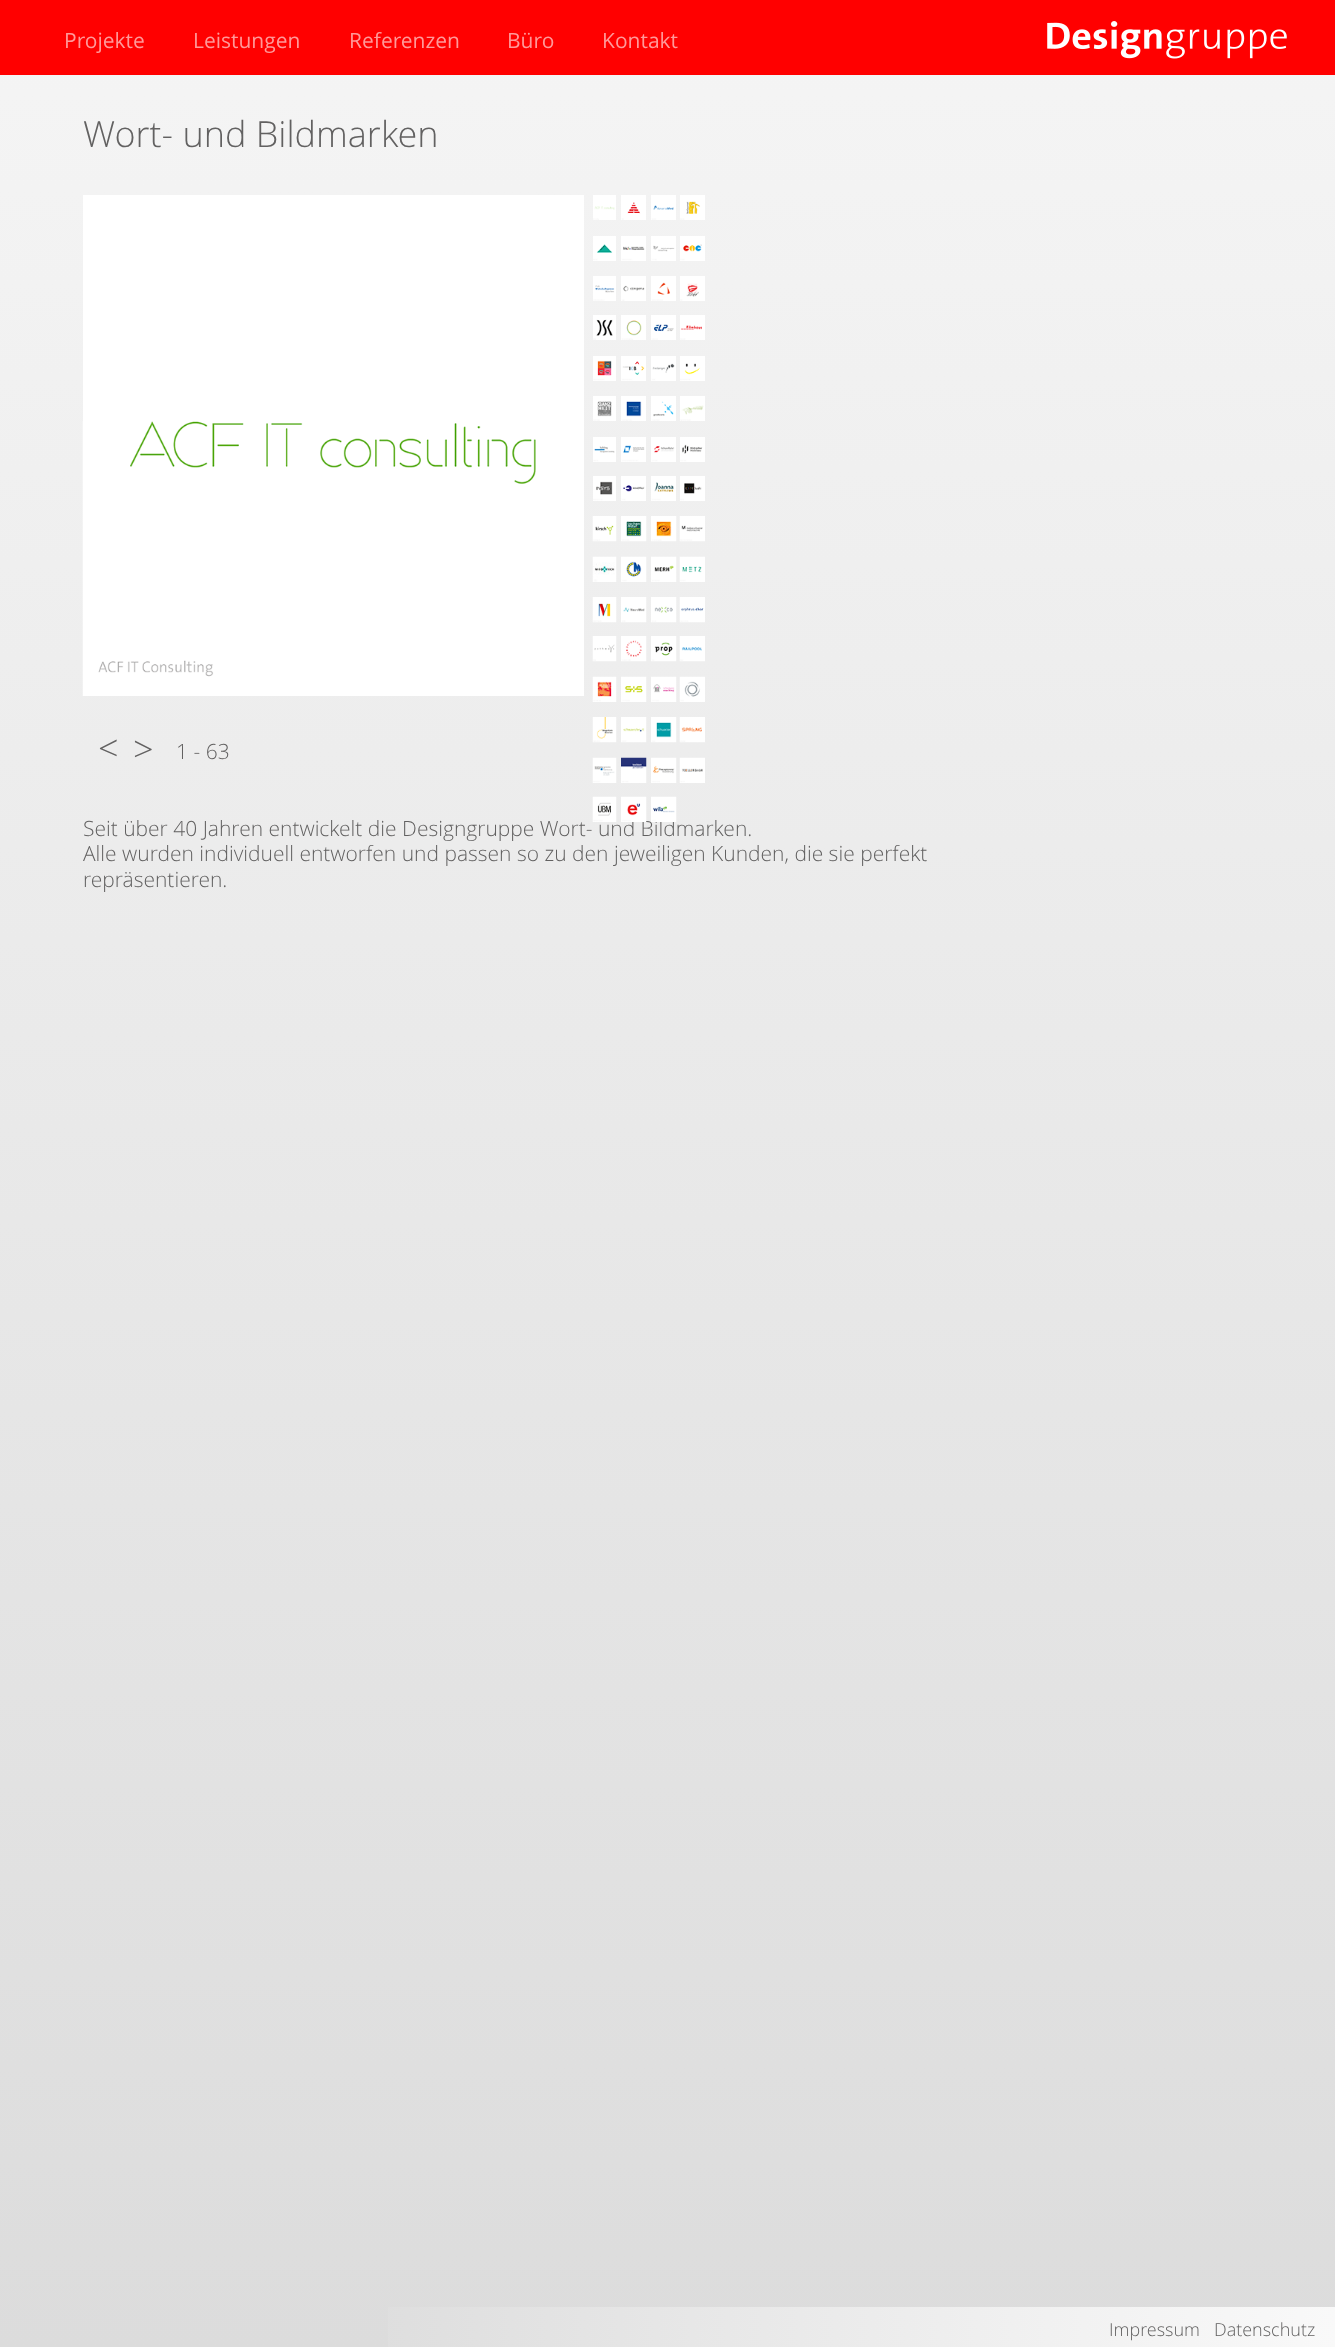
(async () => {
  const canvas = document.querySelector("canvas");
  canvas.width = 1335;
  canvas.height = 2347;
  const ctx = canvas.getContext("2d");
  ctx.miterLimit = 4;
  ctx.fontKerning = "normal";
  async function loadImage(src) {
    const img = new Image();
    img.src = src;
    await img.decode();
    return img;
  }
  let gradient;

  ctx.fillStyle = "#ffffff";
  ctx.fillRect(0, 0, 1335, 2347);
  gradient = ctx.createLinearGradient(667, 0, 668, 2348);
  gradient.addColorStop(0, "#f5f5f5");
  gradient.addColorStop(1, "#dcdcdc");
  ctx.fillStyle = gradient;
  ctx.fillRect(0, 75, 1335, 2272);
  ctx.fillStyle = "#ff0000";
  ctx.fillRect(0, 0, 1335, 75);
  ctx.drawImage(await loadImage("img/1.png"), 1047, 21, 240, 38);
  gradient = ctx.createLinearGradient(299, 2327, 1335, 2327);
  gradient.addColorStop(0, "#dcdcdc");
  gradient.addColorStop(1, "#f9f9f9");
  ctx.fillStyle = gradient;
  ctx.fillRect(388, 2307, 947, 40);
  ctx.fillStyle = "#ffffff";
  ctx.fillRect(83, 195, 501, 501);
  ctx.drawImage(await loadImage("img/2.png"), 82, 421, 454, 275);
  ctx.drawImage(await loadImage("img/3.png"), 593, 195, 23, 25);
  ctx.drawImage(await loadImage("img/4.png"), 593, 236, 23, 25);
  ctx.drawImage(await loadImage("img/5.png"), 593, 276, 23, 25);
  ctx.drawImage(await loadImage("img/6.png"), 593, 315, 23, 25);
  ctx.drawImage(await loadImage("img/7.png"), 593, 356, 23, 25);
  ctx.drawImage(await loadImage("img/8.png"), 593, 396, 23, 25);
  ctx.drawImage(await loadImage("img/9.png"), 593, 437, 23, 25);
  ctx.drawImage(await loadImage("img/10.png"), 593, 476, 23, 25);
  ctx.drawImage(await loadImage("img/11.png"), 592, 516, 25, 26);
  ctx.drawImage(await loadImage("img/12.png"), 592, 556, 25, 26);
  ctx.drawImage(await loadImage("img/13.png"), 592, 597, 25, 26);
  ctx.drawImage(await loadImage("img/14.png"), 592, 636, 25, 26);
  ctx.drawImage(await loadImage("img/15.png"), 592, 676, 25, 26);
  ctx.drawImage(await loadImage("img/16.png"), 592, 717, 25, 26);
  ctx.drawImage(await loadImage("img/17.png"), 592, 757, 25, 26);
  ctx.drawImage(await loadImage("img/19.png"), 621, 195, 25, 25);
  ctx.drawImage(await loadImage("img/20.png"), 621, 236, 25, 25);
  ctx.drawImage(await loadImage("img/21.png"), 621, 276, 25, 25);
  ctx.drawImage(await loadImage("img/22.png"), 621, 315, 25, 25);
  ctx.drawImage(await loadImage("img/23.png"), 621, 356, 25, 25);
  ctx.drawImage(await loadImage("img/24.png"), 621, 396, 25, 25);
  ctx.drawImage(await loadImage("img/25.png"), 621, 437, 25, 25);
  ctx.drawImage(await loadImage("img/26.png"), 621, 476, 25, 25);
  ctx.drawImage(await loadImage("img/27.png"), 621, 516, 26, 26);
  ctx.drawImage(await loadImage("img/28.png"), 621, 556, 26, 26);
  ctx.drawImage(await loadImage("img/29.png"), 621, 597, 26, 26);
  ctx.drawImage(await loadImage("img/30.png"), 621, 636, 26, 26);
  ctx.drawImage(await loadImage("img/31.png"), 621, 676, 26, 26);
  ctx.drawImage(await loadImage("img/32.png"), 621, 717, 26, 26);
  ctx.drawImage(await loadImage("img/33.png"), 621, 757, 26, 26);
  ctx.drawImage(await loadImage("img/35.png"), 651, 195, 25, 25);
  ctx.drawImage(await loadImage("img/36.png"), 651, 236, 25, 25);
  ctx.drawImage(await loadImage("img/37.png"), 651, 276, 25, 25);
  ctx.drawImage(await loadImage("img/38.png"), 651, 315, 25, 25);
  ctx.drawImage(await loadImage("img/39.png"), 651, 356, 25, 25);
  ctx.drawImage(await loadImage("img/40.png"), 651, 396, 25, 25);
  ctx.drawImage(await loadImage("img/41.png"), 651, 437, 25, 25);
  ctx.drawImage(await loadImage("img/42.png"), 651, 476, 25, 25);
  ctx.drawImage(await loadImage("img/43.png"), 651, 516, 26, 26);
  ctx.drawImage(await loadImage("img/44.png"), 651, 556, 26, 26);
  ctx.drawImage(await loadImage("img/45.png"), 651, 597, 26, 26);
  ctx.drawImage(await loadImage("img/46.png"), 651, 636, 26, 26);
  ctx.drawImage(await loadImage("img/47.png"), 651, 676, 26, 26);
  ctx.drawImage(await loadImage("img/48.png"), 651, 717, 26, 26);
  ctx.drawImage(await loadImage("img/49.png"), 651, 757, 26, 26);
  ctx.drawImage(await loadImage("img/51.png"), 680, 195, 25, 25);
  ctx.drawImage(await loadImage("img/52.png"), 680, 236, 25, 25);
  ctx.drawImage(await loadImage("img/53.png"), 680, 276, 25, 25);
  ctx.drawImage(await loadImage("img/54.png"), 680, 315, 25, 25);
  ctx.drawImage(await loadImage("img/55.png"), 680, 356, 25, 25);
  ctx.drawImage(await loadImage("img/56.png"), 680, 396, 25, 25);
  ctx.drawImage(await loadImage("img/57.png"), 680, 437, 25, 25);
  ctx.drawImage(await loadImage("img/58.png"), 680, 476, 25, 25);
  ctx.drawImage(await loadImage("img/59.png"), 679, 516, 26, 26);
  ctx.drawImage(await loadImage("img/60.png"), 679, 556, 26, 26);
  ctx.drawImage(await loadImage("img/61.png"), 679, 597, 26, 26);
  ctx.drawImage(await loadImage("img/62.png"), 679, 636, 26, 26);
  ctx.drawImage(await loadImage("img/63.png"), 679, 676, 26, 26);
  ctx.drawImage(await loadImage("img/64.png"), 679, 717, 26, 26);
  ctx.drawImage(await loadImage("img/65.png"), 679, 757, 26, 26);
  ctx.font = "21px Open Sans";
  ctx.fillStyle = "#ff9999";
  for (const [text, x, y] of [
    ["Projekte", 64, 48],
    ["Leistungen", 193, 48],
    ["Referenzen", 349, 48],
    ["Büro", 507, 48],
    ["Kontakt", 602, 48],
  ]) {
    ctx.fillText(text, x, y);
  }
  ctx.font = "300 18px Open Sans";
  ctx.fillStyle = "#626161";
  ctx.fillText("Impressum   Datenschutz", 1109, 2336);
  ctx.font = "300 36px Open Sans";
  for (const [text, x, y] of [
    ["Wort- und Bildmarken", 83, 147],
    ["<", 98, 761],
    [">", 133, 762],
  ]) {
    ctx.fillText(text, x, y);
  }
  ctx.font = "300 21px Open Sans";
  ctx.fillText("1 - 63", 176, 759);
  ctx.fillText("Seit über 40 Jahren entwickelt die Designgruppe Wort- und Bildmarken.", 83, 836);
  ctx.drawImage(await loadImage("img/50.png"), 651, 796, 26, 26);
  ctx.drawImage(await loadImage("img/34.png"), 621, 796, 26, 26);
  ctx.drawImage(await loadImage("img/18.png"), 592, 796, 25, 26);
  ctx.fillText("Alle wurden individuell entworfen und passen so zu den jeweiligen Kunden, die sie perfekt", 83, 861);
  ctx.fillText("repräsentieren.", 83, 887);
})();
